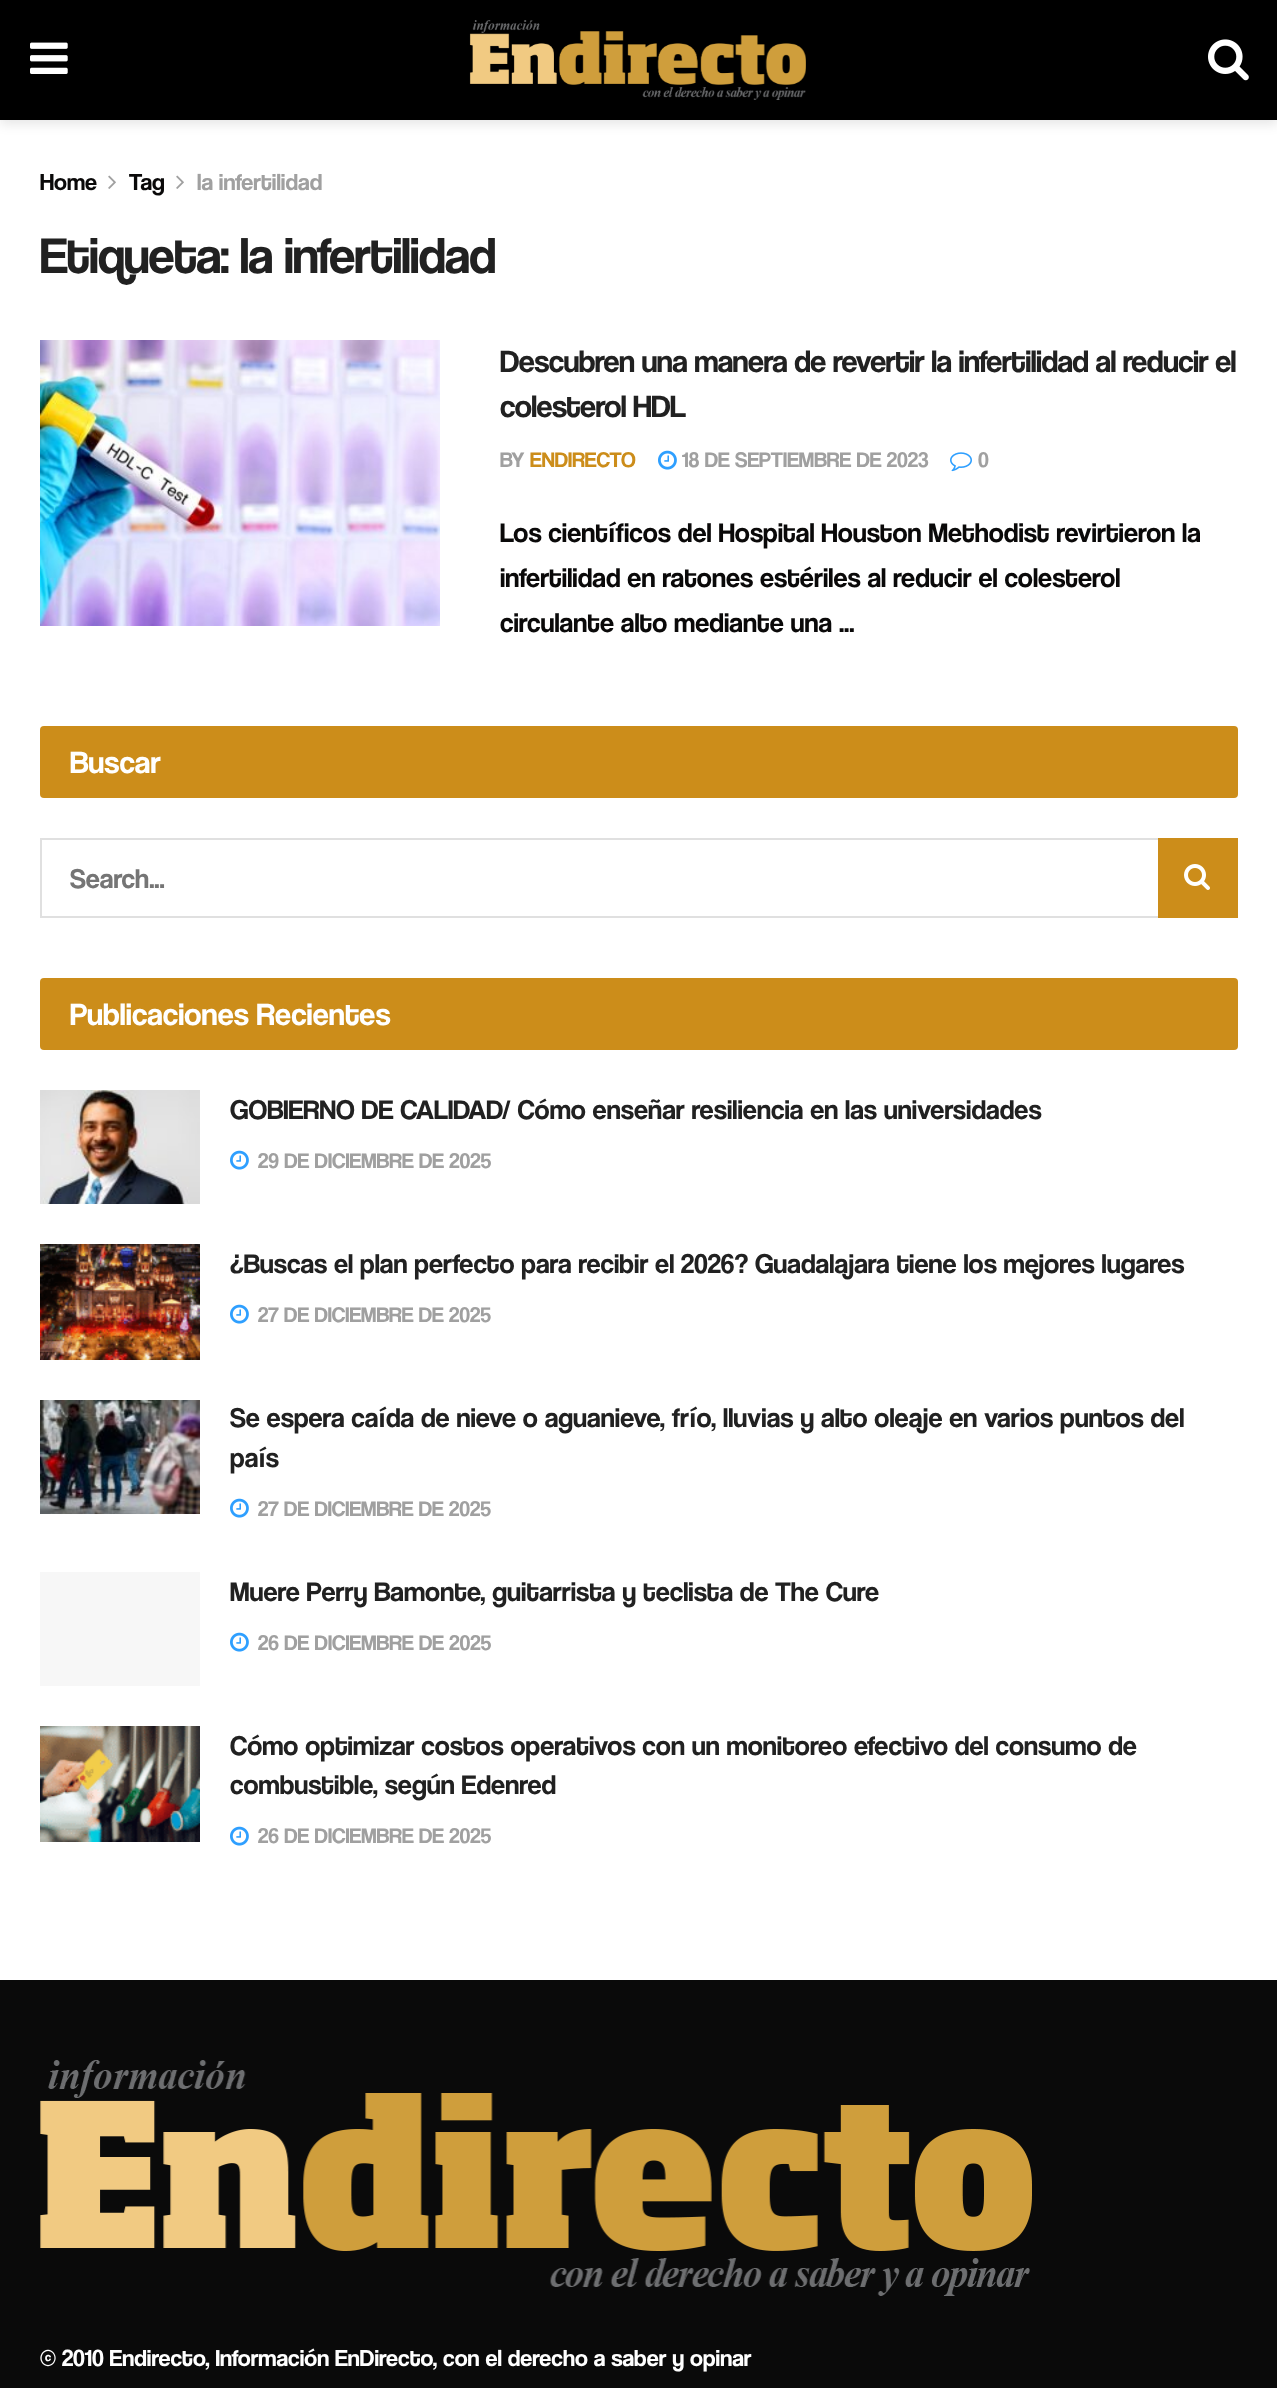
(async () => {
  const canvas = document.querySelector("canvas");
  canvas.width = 1277;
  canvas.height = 2388;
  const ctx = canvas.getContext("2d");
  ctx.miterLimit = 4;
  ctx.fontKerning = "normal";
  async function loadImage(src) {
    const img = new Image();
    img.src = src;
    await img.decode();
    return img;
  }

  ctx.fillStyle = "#ffffff";
  ctx.fillRect(0, 0, 1277, 2388);
  ctx.fillStyle = "rgba(0, 0, 0, 0.1)";
  ctx.filter = "blur(6px)";
  ctx.beginPath();
  ctx.rect(0, 4, 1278, 120);
  ctx.fill();
  ctx.filter = "none";
  ctx.fillStyle = "#000000";
  ctx.fillRect(0, 0, 1277, 120);
  ctx.drawImage(await loadImage("img/1.png"), 30, 42, 38, 32);
  ctx.drawImage(await loadImage("img/2.png"), 469, 20, 337, 80);
  ctx.drawImage(await loadImage("img/3.png"), 1208, 39, 41, 42);
  ctx.drawImage(await loadImage("img/4.png"), 108, 175, 8, 14);
  ctx.drawImage(await loadImage("img/4.png"), 176, 175, 8, 14);
  ctx.drawImage(await loadImage("img/5.png"), 40, 340, 400, 286);
  ctx.drawImage(await loadImage("img/6.png"), 658, 450, 19, 20);
  ctx.drawImage(await loadImage("img/7.png"), 950, 452, 22, 20);
  ctx.fillStyle = "#cc8d1a";
  ctx.beginPath();
  ctx.roundRect(40, 726, 1198, 72, 4);
  ctx.fill();
  ctx.strokeStyle = "#e0e0e0";
  ctx.lineWidth = 2;
  ctx.strokeRect(41, 839, 1196, 78);
  ctx.fillRect(1158, 838, 80, 80);
  ctx.drawImage(await loadImage("img/8.png"), 1184, 864, 26, 26);
  ctx.beginPath();
  ctx.roundRect(40, 978, 1198, 72, 4);
  ctx.fill();
  ctx.drawImage(await loadImage("img/9.png"), 40, 1090, 160, 114);
  ctx.drawImage(await loadImage("img/6.png"), 230, 1150, 19, 20);
  ctx.drawImage(await loadImage("img/10.png"), 40, 1244, 160, 116);
  ctx.drawImage(await loadImage("img/6.png"), 230, 1304, 19, 20);
  ctx.drawImage(await loadImage("img/11.png"), 40, 1400, 160, 114);
  ctx.drawImage(await loadImage("img/6.png"), 230, 1498, 19, 20);
  ctx.fillStyle = "#f7f7f7";
  ctx.fillRect(40, 1572, 160, 114);
  ctx.drawImage(await loadImage("img/6.png"), 230, 1632, 19, 20);
  ctx.drawImage(await loadImage("img/12.png"), 40, 1726, 160, 116);
  ctx.drawImage(await loadImage("img/6.png"), 230, 1826, 19, 20);
  ctx.fillStyle = "#0a0a0a";
  ctx.fillRect(0, 1980, 1277, 408);
  ctx.drawImage(await loadImage("img/13.png"), 40, 2060, 992, 236);
  ctx.font = "24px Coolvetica";
  ctx.fillStyle = "#0a0909";
  ctx.fillText("Home", 40, 190);
  ctx.fillText("Tag", 129, 190);
  ctx.fillStyle = "#a0a0a0";
  ctx.fillText("la infertilidad", 197, 190);
  ctx.letterSpacing = "-1.05px";
  ctx.font = "52px Coolvetica";
  ctx.fillStyle = "#212121";
  ctx.fillText("Etiqueta: la infertilidad", 40, 273);
  ctx.letterSpacing = "-0.65px";
  ctx.font = "32px Coolvetica";
  ctx.fillText("Descubren una manera de revertir la infertilidad al reducir el", 500, 372);
  ctx.fillText("colesterol HDL", 500, 417);
  ctx.letterSpacing = "0px";
  ctx.font = "22px Coolvetica";
  ctx.fillStyle = "#a0a0a0";
  ctx.fillText("BY", 500, 467);
  ctx.fillStyle = "#cc8d1a";
  ctx.fillText("ENDIRECTO", 530, 467);
  ctx.fillStyle = "#a0a0a0";
  ctx.fillText("18 DE SEPTIEMBRE DE 2023", 682, 467);
  ctx.fillText("0", 978, 467);
  ctx.font = "28px Coolvetica";
  ctx.fillStyle = "#0a0909";
  for (const [text, x, y] of [
    ["Los científicos del Hospital Houston Methodist revirtieron la", 500, 542],
    ["infertilidad en ratones estériles al reducir el colesterol", 500, 587],
    ["circulante alto mediante una ...", 500, 632],
  ]) {
    ctx.fillText(text, x, y);
  }
  ctx.font = "32px Coolvetica";
  ctx.fillStyle = "#ffffff";
  ctx.fillText("Buscar", 70, 773);
  ctx.font = "28px Coolvetica";
  ctx.fillStyle = "#757575";
  ctx.fillText("Search...", 70, 888);
  ctx.font = "32px Coolvetica";
  ctx.fillStyle = "#ffffff";
  ctx.fillText("Publicaciones Recientes", 70, 1025);
  ctx.font = "28px Coolvetica";
  ctx.fillStyle = "#212121";
  ctx.fillText("GOBIERNO DE CALIDAD/ Cómo enseñar resiliencia en las universidades", 230, 1119);
  ctx.font = "22px Coolvetica";
  ctx.fillStyle = "#a0a0a0";
  ctx.fillText("29 DE DICIEMBRE DE 2025", 258, 1168);
  ctx.font = "28px Coolvetica";
  ctx.fillStyle = "#212121";
  ctx.fillText("¿Buscas el plan perfecto para recibir el 2026? Guadalajara tiene los mejores lugares", 230, 1273);
  ctx.font = "22px Coolvetica";
  ctx.fillStyle = "#a0a0a0";
  ctx.fillText("27 DE DICIEMBRE DE 2025", 258, 1322);
  ctx.font = "28px Coolvetica";
  ctx.fillStyle = "#212121";
  ctx.fillText("Se espera caída de nieve o aguanieve, frío, lluvias y alto oleaje en varios puntos del", 230, 1427);
  ctx.fillText("país", 230, 1467);
  ctx.font = "22px Coolvetica";
  ctx.fillStyle = "#a0a0a0";
  ctx.fillText("27 DE DICIEMBRE DE 2025", 258, 1516);
  ctx.font = "28px Coolvetica";
  ctx.fillStyle = "#212121";
  ctx.fillText("Muere Perry Bamonte, guitarrista y teclista de The Cure", 230, 1601);
  ctx.font = "22px Coolvetica";
  ctx.fillStyle = "#a0a0a0";
  ctx.fillText("26 DE DICIEMBRE DE 2025", 258, 1650);
  ctx.font = "28px Coolvetica";
  ctx.fillStyle = "#212121";
  ctx.fillText("Cómo optimizar costos operativos con un monitoreo efectivo del consumo de", 230, 1755);
  ctx.fillText("combustible, según Edenred", 230, 1794);
  ctx.font = "22px Coolvetica";
  ctx.fillStyle = "#a0a0a0";
  ctx.fillText("26 DE DICIEMBRE DE 2025", 258, 1843);
  ctx.font = "24px Coolvetica";
  ctx.fillStyle = "#ffffff";
  ctx.fillText("© 2010 Endirecto, Información EnDirecto, con el derecho a saber y opinar", 40, 2366);
})();
